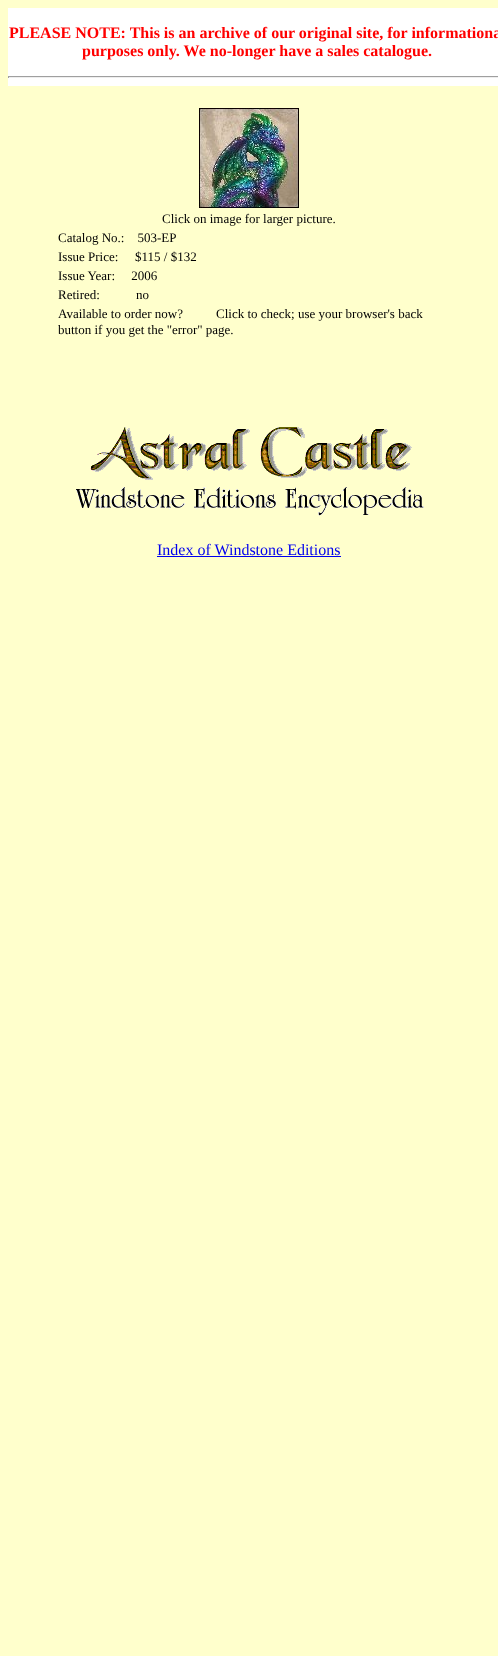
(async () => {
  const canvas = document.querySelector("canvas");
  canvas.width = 498;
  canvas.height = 1656;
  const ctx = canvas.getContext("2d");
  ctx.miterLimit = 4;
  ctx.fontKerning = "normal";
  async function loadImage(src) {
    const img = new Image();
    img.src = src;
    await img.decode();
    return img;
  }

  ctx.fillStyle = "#ffffcc";
  ctx.fillRect(0, 0, 498, 1656);
  for (const [x, y, w, h, color] of [
    [8, 8, 490, 78, "#ffffff"],
    [8, 76, 490, 1, "#9f9f9f"],
    [8, 77, 490, 1, "#eeeeee"],
    [8, 76, 1, 2, "#9f9f9f"],
  ]) {
    ctx.fillStyle = color;
    ctx.fillRect(x, y, w, h);
  }
  ctx.drawImage(await loadImage("img/1.png"), 199, 108, 100, 100);
  ctx.drawImage(await loadImage("img/2.png"), 76, 427, 348, 89);
  ctx.fillStyle = "#0000ee";
  ctx.fillRect(157, 556, 184, 1);
  ctx.font = "bold 16px Liberation Serif";
  ctx.fillStyle = "#ff0000";
  ctx.fillText("PLEASE NOTE: This is an archive of our original site, for informationa", 9, 38);
  ctx.fillText("purposes only. We no-longer have a sales catalogue.", 82, 56);
  ctx.font = "13px Liberation Serif";
  ctx.fillStyle = "#000000";
  for (const [text, x, y] of [
    ["Click on image for larger picture.", 162, 223],
    ["Catalog No.:    503-EP", 58, 242],
    ["Issue Price:", 58, 261],
    ["$115 / $132", 135, 261],
    ["Issue Year:     2006", 58, 280],
    ["Retired:", 58, 299],
    ["no", 136, 299],
    ["Available to order now?", 58, 318],
    ["Click to check; use your browser's back", 216, 318],
    ["button if you get the \"error\" page.", 58, 334],
  ]) {
    ctx.fillText(text, x, y);
  }
  ctx.font = "16px Liberation Serif";
  ctx.fillStyle = "#0000ee";
  ctx.fillText("Index of Windstone Editions", 157, 555);
})();
